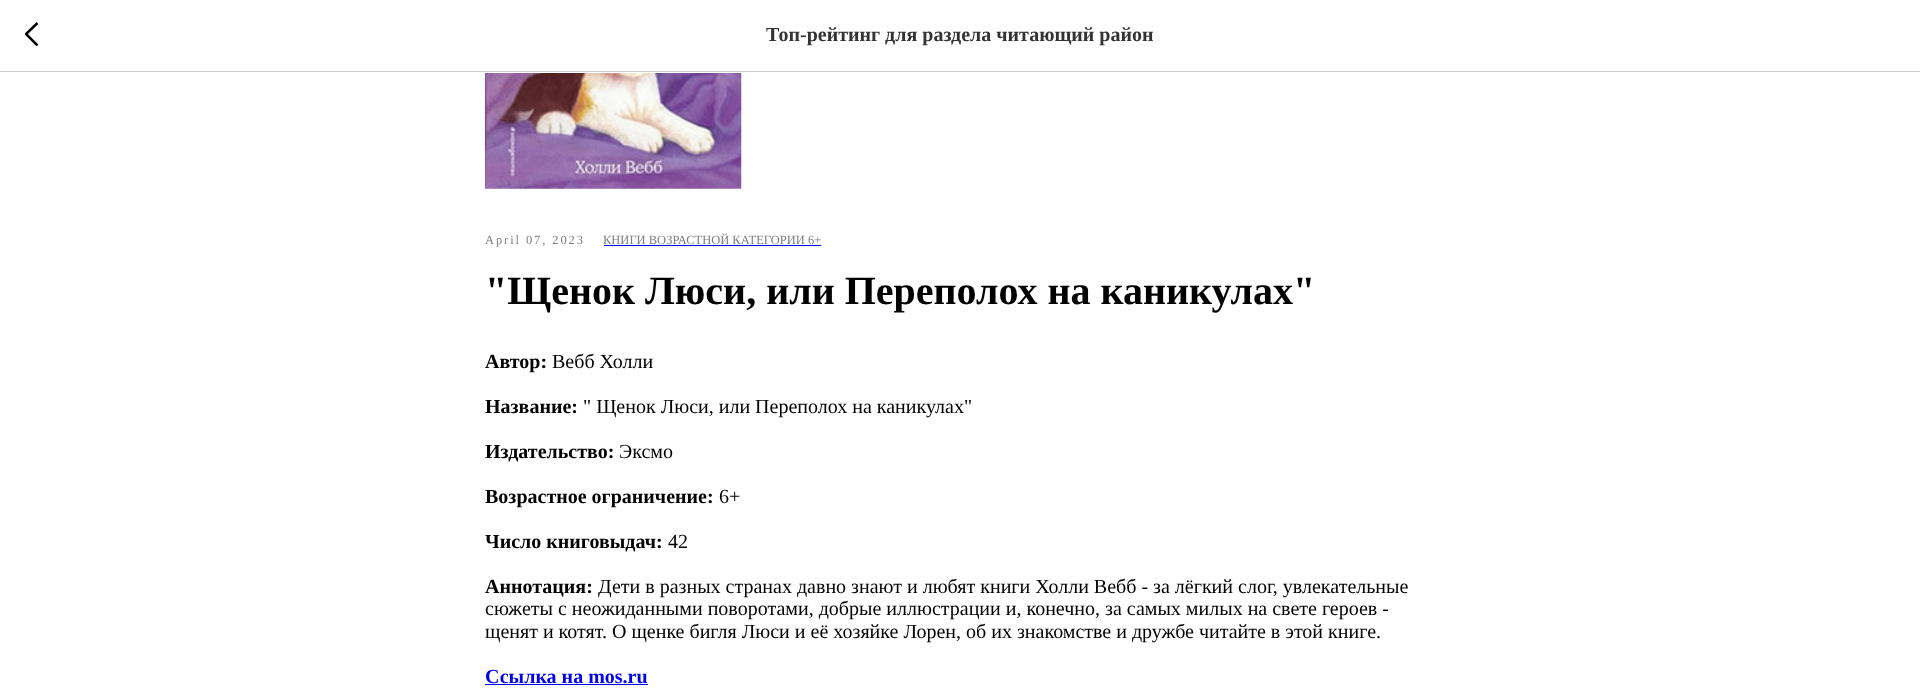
(async () => {
  const canvas = document.querySelector("canvas");
  canvas.width = 1920;
  canvas.height = 689;
  const ctx = canvas.getContext("2d");
  ctx.miterLimit = 4;
  ctx.fontKerning = "normal";
  async function loadImage(src) {
    const img = new Image();
    img.src = src;
    await img.decode();
    return img;
  }
  let path;

  ctx.fillStyle = "#ffffff";
  ctx.fillRect(0, 0, 1920, 689);
  ctx.fillStyle = "#cccccc";
  ctx.fillRect(0, 71, 1920, 1);
  ctx.save();
  ctx.beginPath();
  ctx.rect(25, 21, 14, 25);
  ctx.clip();
  path = new Path2D("M37.5 45.5L26 34L37.5 23");
  ctx.strokeStyle = "#000000";
  ctx.lineWidth = 2.5;
  ctx.stroke(path);
  ctx.restore();
  ctx.drawImage(await loadImage("img/1.png"), 485, 73, 257, 116);
  ctx.fillStyle = "#0000ee";
  ctx.fillRect(604, 245, 217, 1);
  ctx.fillRect(485, 684, 163, 1);
  ctx.font = "bold 20px Liberation Serif";
  ctx.fillStyle = "#333333";
  ctx.fillText("Топ-рейтинг для раздела читающий район", 766, 41);
  ctx.letterSpacing = "1.9px";
  ctx.font = "12.5px Liberation Serif";
  ctx.fillStyle = "#808080";
  ctx.fillText("April 07, 2023", 485, 244);
  ctx.letterSpacing = "0px";
  ctx.fillText("КНИГИ ВОЗРАСТНОЙ КАТЕГОРИИ 6+", 603, 244);
  ctx.font = "bold 40px Liberation Serif";
  ctx.fillStyle = "#000000";
  ctx.fillText("\"Щенок Люси, или Переполох на каникулах\"", 485, 304);
  ctx.font = "bold 20px Liberation Serif";
  ctx.fillText("Автор:", 485, 368);
  ctx.font = "20px Liberation Serif";
  ctx.fillText("Вебб Холли", 552, 368);
  ctx.font = "bold 20px Liberation Serif";
  ctx.fillText("Название:", 485, 413);
  ctx.font = "20px Liberation Serif";
  ctx.fillText("\" Щенок Люси, или Переполох на каникулах\"", 583, 413);
  ctx.font = "bold 20px Liberation Serif";
  ctx.fillText("Издательство:", 485, 458);
  ctx.font = "20px Liberation Serif";
  ctx.fillText("Эксмо", 619, 458);
  ctx.font = "bold 20px Liberation Serif";
  ctx.fillText("Возрастное ограничение:", 485, 503);
  ctx.font = "20px Liberation Serif";
  ctx.fillText("6+", 719, 503);
  ctx.font = "bold 20px Liberation Serif";
  ctx.fillText("Число книговыдач:", 485, 548);
  ctx.font = "20px Liberation Serif";
  ctx.fillText("42", 668, 548);
  ctx.font = "bold 20px Liberation Serif";
  ctx.fillText("Аннотация:", 485, 593);
  ctx.font = "20px Liberation Serif";
  for (const [text, x, y] of [
    ["Дети в разных странах давно знают и любят книги Холли Вебб - за лёгкий слог, увлекательные", 598, 593],
    ["сюжеты с неожиданными поворотами, добрые иллюстрации и, конечно, за самых милых на свете героев -", 485, 615],
    ["щенят и котят. О щенке бигля Люси и её хозяйке Лорен, об их знакомстве и дружбе читайте в этой книге.", 485, 638],
  ]) {
    ctx.fillText(text, x, y);
  }
  ctx.font = "bold 20px Liberation Serif";
  ctx.fillStyle = "#0000ee";
  ctx.fillText("Ссылка на mos.ru", 485, 683);
})();
